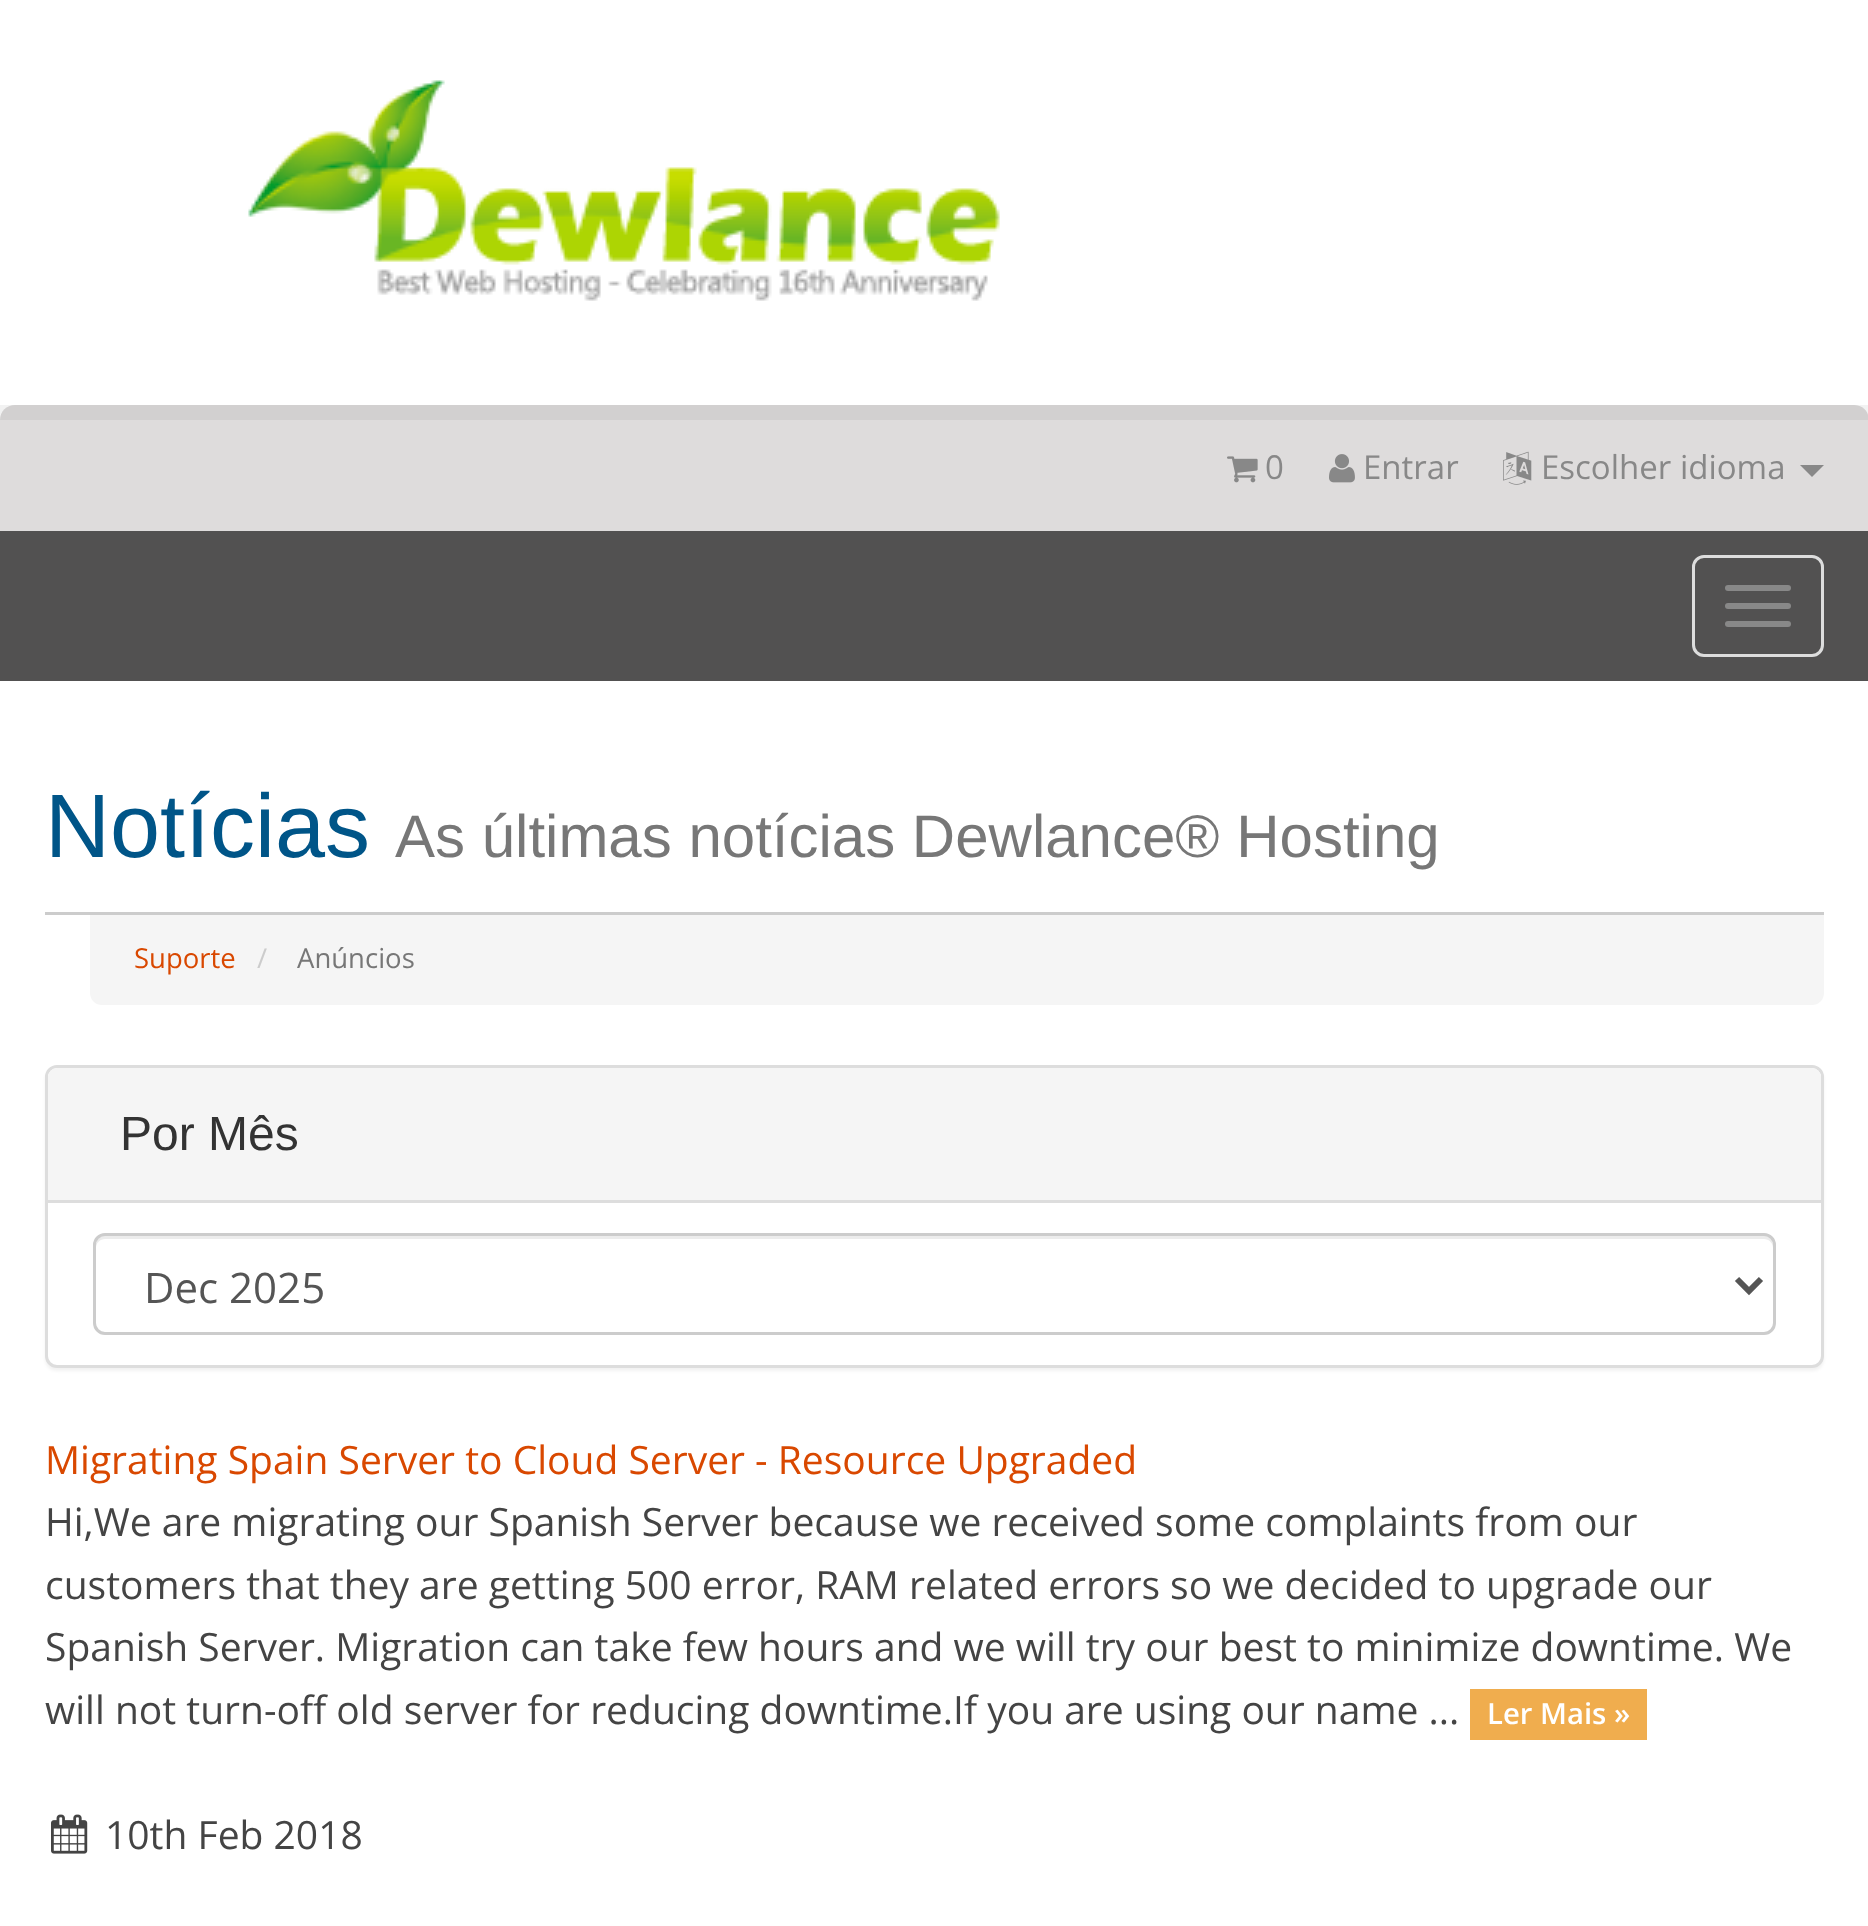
(async () => {
  const canvas = document.querySelector("canvas");
  canvas.width = 1868;
  canvas.height = 1926;
  const ctx = canvas.getContext("2d");
  ctx.miterLimit = 4;
  ctx.fontKerning = "normal";
  async function loadImage(src) {
    const img = new Image();
    img.src = src;
    await img.decode();
    return img;
  }
  let path;

  ctx.fillStyle = "#ffffff";
  ctx.fillRect(0, 0, 1868, 1926);
  ctx.fillStyle = "#dedcdc";
  path = new Path2D("M15 405H1854C1862.5 405 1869 411.5 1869 420V531H0V420C0 411.5 6.5 405 15 405Z");
  ctx.fill(path);
  ctx.fillStyle = "rgba(0, 0, 0, 0.05)";
  ctx.fillRect(0, 405, 1868, 15);
  ctx.drawImage(await loadImage("img/1.png"), 248, 80, 752, 221);
  ctx.drawImage(await loadImage("img/2.png"), 1227, 456, 31, 27);
  ctx.drawImage(await loadImage("img/3.png"), 1329, 454, 26, 29);
  ctx.drawImage(await loadImage("img/4.png"), 1503, 451, 29, 34);
  ctx.fillStyle = "#888888";
  path = new Path2D("M1800 465H1824L1812 477Z");
  ctx.fill(path);
  ctx.fillStyle = "#525151";
  ctx.fillRect(0, 531, 1868, 150);
  ctx.beginPath();
  ctx.roundRect(1693.5, 556.5, 129, 99, 10.5);
  ctx.strokeStyle = "#dddddd";
  ctx.lineWidth = 3;
  ctx.stroke();
  ctx.fillStyle = "#888888";
  ctx.beginPath();
  ctx.roundRect(1725, 585, 66, 6, 3);
  ctx.fill();
  ctx.beginPath();
  ctx.roundRect(1725, 603, 66, 6, 3);
  ctx.fill();
  ctx.beginPath();
  ctx.roundRect(1725, 621, 66, 6, 3);
  ctx.fill();
  ctx.fillStyle = "#cccccc";
  ctx.fillRect(45, 912, 1779, 3);
  ctx.fillStyle = "#f5f5f5";
  ctx.beginPath();
  ctx.roundRect(90, 915, 1734, 90, [0, 0, 12, 12]);
  ctx.fill();
  ctx.fillStyle = "rgba(0, 0, 0, 0.05)";
  ctx.filter = "blur(1.5px)";
  ctx.beginPath();
  ctx.roundRect(45, 1068, 1779, 303, 12);
  ctx.fill();
  ctx.filter = "none";
  ctx.fillStyle = "#ffffff";
  ctx.beginPath();
  ctx.roundRect(46.5, 1066.5, 1776, 300, 10.5);
  ctx.fill();
  ctx.stroke();
  ctx.fillStyle = "#f5f5f5";
  ctx.beginPath();
  ctx.roundRect(48, 1068, 1773, 135, [9, 9, 0, 0]);
  ctx.fill();
  ctx.fillStyle = "#dddddd";
  ctx.fillRect(48, 1200, 1773, 3);
  ctx.fillStyle = "#ececec";
  path = new Path2D("M105 1239H1764C1769 1239 1773 1243 1773 1248V1245C1773 1240 1769 1236 1764 1236H105C100 1236 96 1240 96 1245V1248C96 1243 100 1239 105 1239Z");
  ctx.fill(path);
  ctx.beginPath();
  ctx.roundRect(94.5, 1234.5, 1680, 99, 10.5);
  ctx.strokeStyle = "#cccccc";
  ctx.stroke();
  path = new Path2D("M1737 1279L1749 1291L1761 1279");
  ctx.strokeStyle = "#555555";
  ctx.lineWidth = 6;
  ctx.stroke(path);
  ctx.fillStyle = "#f0ad4e";
  ctx.fillRect(1470, 1689, 177, 51);
  ctx.drawImage(await loadImage("img/5.png"), 51, 1814, 37, 40);
  ctx.font = "33px Open Sans";
  ctx.fillStyle = "#888888";
  for (const [text, x, y] of [
    ["0", 1265, 479],
    ["Entrar", 1363, 479],
    ["Escolher idioma", 1541, 479],
  ]) {
    ctx.fillText(text, x, y);
  }
  ctx.font = "90px Liberation Sans";
  ctx.fillStyle = "#005588";
  ctx.fillText("Notícias", 45, 857);
  ctx.font = "60px Liberation Sans";
  ctx.fillStyle = "#777777";
  ctx.fillText("As últimas notícias Dewlance® Hosting", 395, 857);
  ctx.font = "27.5px Open Sans";
  ctx.fillStyle = "#d94800";
  ctx.fillText("Suporte", 134, 968);
  ctx.fillStyle = "#cccccc";
  ctx.fillText("/", 257, 968);
  ctx.fillStyle = "#777777";
  ctx.fillText("Anúncios", 297, 968);
  ctx.font = "48px Liberation Sans";
  ctx.fillStyle = "#333333";
  ctx.fillText("Por Mês", 120, 1150);
  ctx.font = "42px Open Sans";
  ctx.fillStyle = "#555555";
  ctx.fillText("Dec 2025", 144, 1303);
  ctx.font = "39px Open Sans";
  ctx.fillStyle = "#d94800";
  ctx.fillText("Migrating Spain Server to Cloud Server - Resource Upgraded", 45, 1474);
  ctx.fillStyle = "#444444";
  for (const [text, x, y] of [
    ["Hi,We are migrating our Spanish Server because we received some complaints from our", 45, 1536],
    ["customers that they are getting 500 error, RAM related errors so we decided to upgrade our", 45, 1599],
    ["Spanish Server. Migration can take few hours and we will try our best to minimize downtime. We", 45, 1661],
    ["will not turn-off old server for reducing downtime.If you are using our name ...", 45, 1724],
  ]) {
    ctx.fillText(text, x, y);
  }
  ctx.font = "600 29.25px Open Sans";
  ctx.fillStyle = "#ffffff";
  ctx.fillText("Ler Mais »", 1487, 1724);
  ctx.font = "39px Open Sans";
  ctx.fillStyle = "#444444";
  ctx.fillText("10th Feb 2018", 105, 1849);
})();
